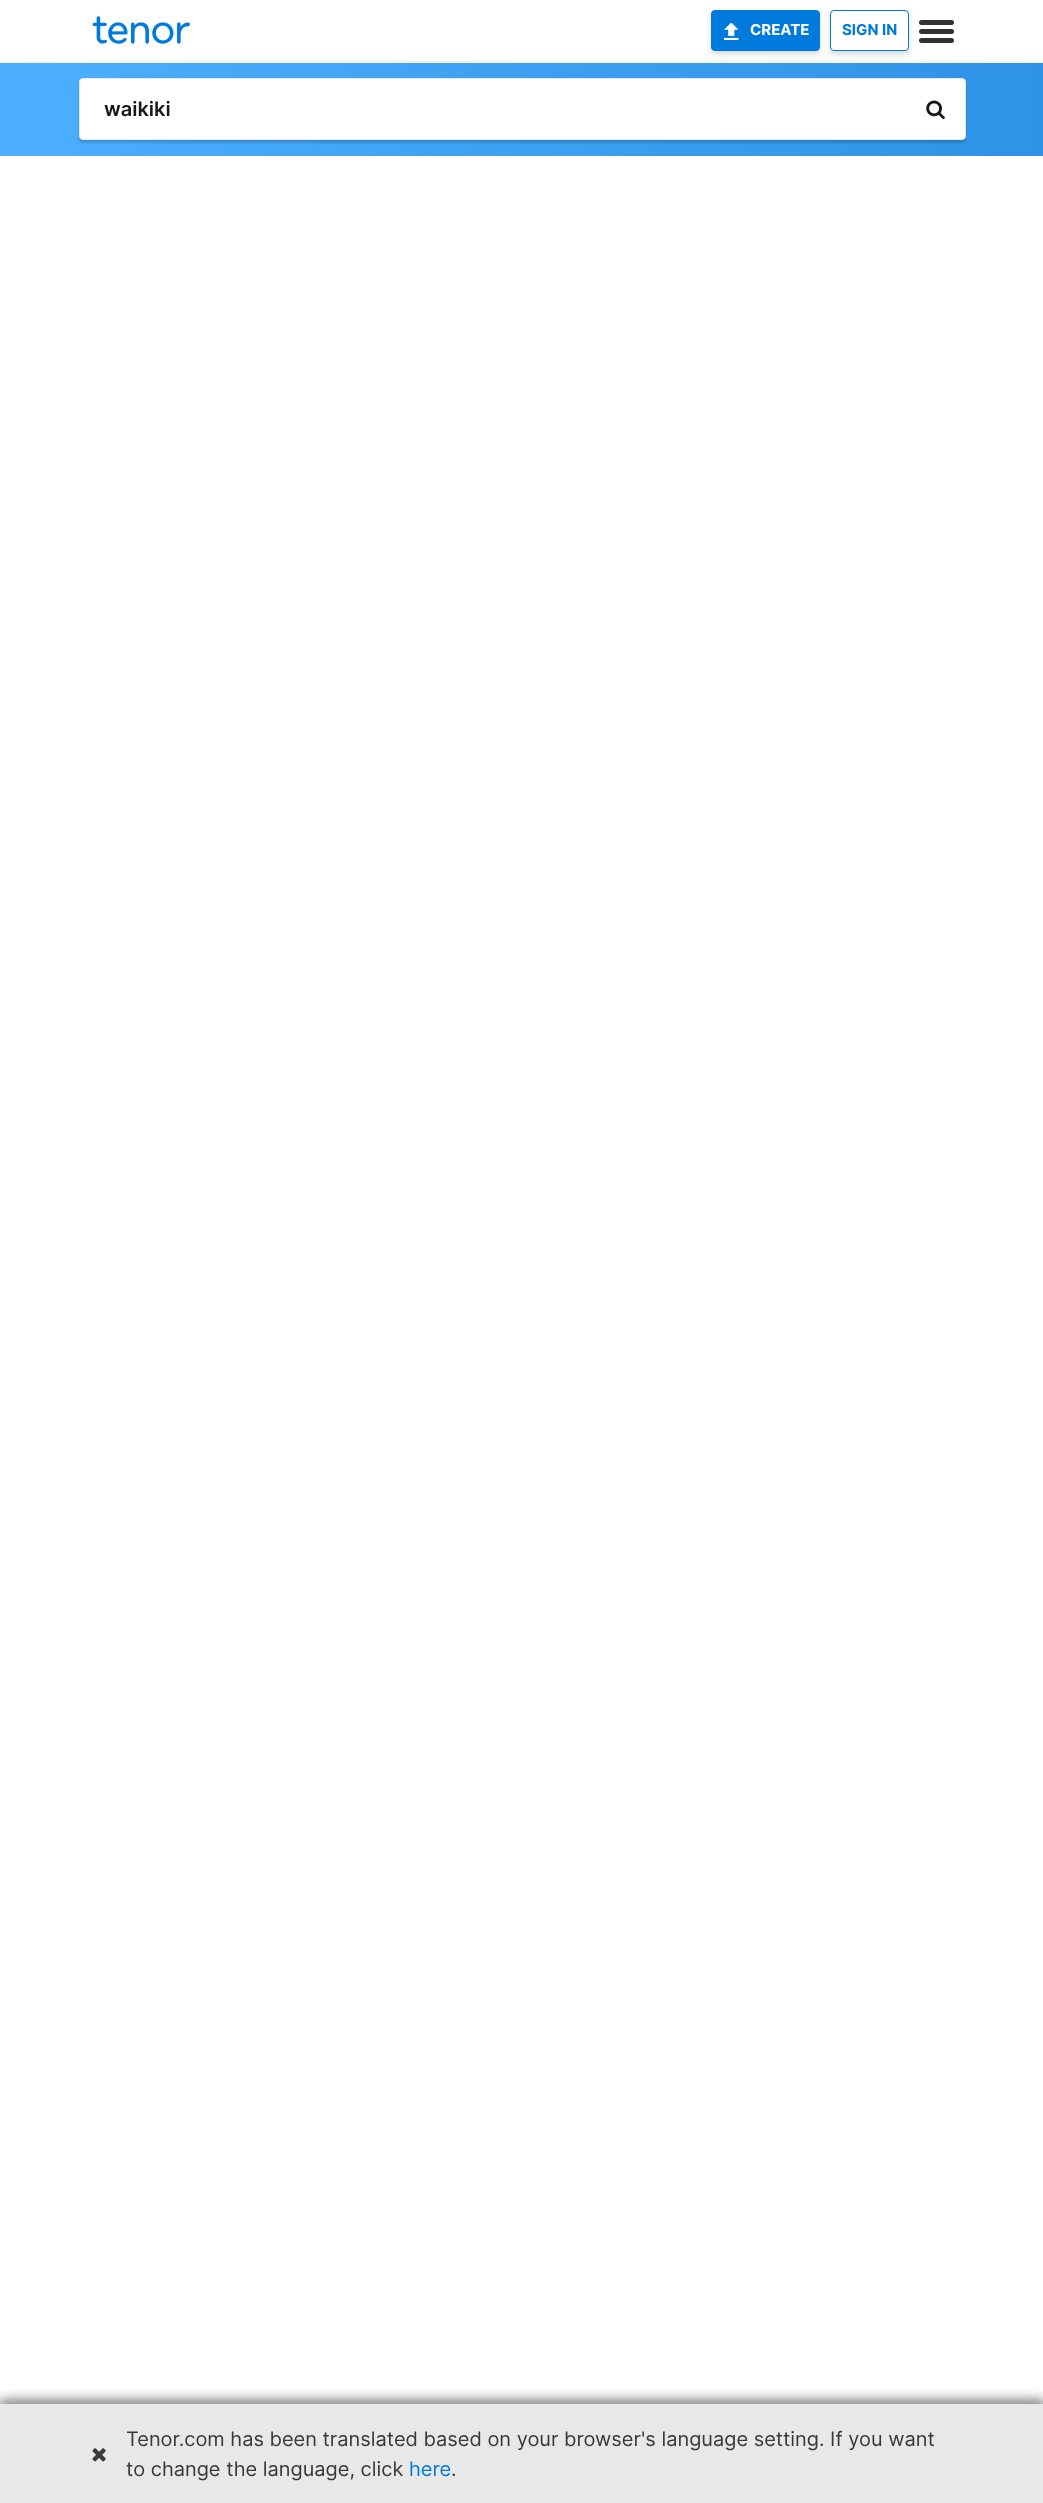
(async () => {
  const canvas = document.querySelector("canvas");
  canvas.width = 1043;
  canvas.height = 2503;
  const ctx = canvas.getContext("2d");
  ctx.miterLimit = 4;
  ctx.fontKerning = "normal";
  async function loadImage(src) {
    const img = new Image();
    img.src = src;
    await img.decode();
    return img;
  }
  let gradient;

  ctx.fillStyle = "#ffffff";
  ctx.fillRect(0, 0, 1043, 2503);
  ctx.fillStyle = "#ebf2f7";
  ctx.fillRect(0, 61, 1043, 1);
  ctx.drawImage(await loadImage("img/1.png"), 92, 16, 98, 28);
  ctx.fillStyle = "rgba(83, 83, 92, 0.11)";
  ctx.filter = "blur(4px)";
  ctx.beginPath();
  ctx.roundRect(711, 15, 109, 41, 4);
  ctx.fill();
  ctx.filter = "none";
  ctx.fillStyle = "rgba(0, 0, 0, 0.08)";
  ctx.filter = "blur(2px)";
  ctx.beginPath();
  ctx.roundRect(711, 11, 109, 42, 4);
  ctx.fill();
  ctx.filter = "none";
  ctx.fillStyle = "#007add";
  ctx.beginPath();
  ctx.roundRect(711.5, 10.5, 108, 40, 3.5);
  ctx.fill();
  ctx.strokeStyle = "#007add";
  ctx.stroke();
  ctx.drawImage(await loadImage("img/2.png"), 724, 23, 15, 17);
  ctx.fillStyle = "rgba(83, 83, 92, 0.11)";
  ctx.filter = "blur(4px)";
  ctx.beginPath();
  ctx.roundRect(830, 15, 79, 41, 4);
  ctx.fill();
  ctx.filter = "none";
  ctx.fillStyle = "rgba(0, 0, 0, 0.08)";
  ctx.filter = "blur(2px)";
  ctx.beginPath();
  ctx.roundRect(830, 11, 79, 42, 4);
  ctx.fill();
  ctx.filter = "none";
  ctx.fillStyle = "#ffffff";
  ctx.beginPath();
  ctx.roundRect(830.5, 10.5, 78, 40, 3.5);
  ctx.fill();
  ctx.stroke();
  ctx.fillStyle = "#333333";
  ctx.beginPath();
  ctx.roundRect(919, 29, 35, 5, 2.5);
  ctx.fill();
  ctx.beginPath();
  ctx.roundRect(919, 20, 35, 5, 2.5);
  ctx.fill();
  ctx.beginPath();
  ctx.roundRect(919, 38, 35, 5, 2.5);
  ctx.fill();
  gradient = ctx.createLinearGradient(0, 109, 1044, 109);
  gradient.addColorStop(0, "#4cafff");
  gradient.addColorStop(1, "#2e93e6");
  ctx.fillStyle = gradient;
  ctx.fillRect(0, 63, 1043, 93);
  ctx.fillStyle = "rgba(0, 0, 0, 0.16)";
  ctx.filter = "blur(1px)";
  ctx.beginPath();
  ctx.roundRect(79, 80, 887, 63, 4);
  ctx.fill();
  ctx.filter = "none";
  ctx.fillStyle = "#ffffff";
  ctx.beginPath();
  ctx.roundRect(79.5, 78.5, 886, 61, 3.5);
  ctx.fill();
  ctx.strokeStyle = "#e8e8e8";
  ctx.stroke();
  ctx.drawImage(await loadImage("img/3.png"), 926, 100, 19, 20);
  ctx.fillStyle = "#999999";
  ctx.filter = "blur(6px)";
  ctx.beginPath();
  ctx.rect(0, 2401, 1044, 100);
  ctx.fill();
  ctx.filter = "none";
  ctx.filter = "blur(6px)";
  ctx.beginPath();
  ctx.rect(0, 2401, 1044, 100);
  ctx.fill();
  ctx.filter = "none";
  ctx.fillStyle = "#e8e8e8";
  ctx.fillRect(0, 2404, 1043, 99);
  ctx.drawImage(await loadImage("img/4.png"), 92, 2448, 14, 14);
  ctx.font = "bold 15px Inter";
  ctx.fillStyle = "#ffffff";
  ctx.fillText("CREATE", 750, 35);
  ctx.fillStyle = "#007add";
  ctx.fillText("SIGN IN", 842, 35);
  ctx.font = "600 20px Inter";
  ctx.fillStyle = "#171717";
  ctx.fillText("waikiki", 104, 116);
  ctx.font = "20px Inter";
  ctx.fillStyle = "#373a3c";
  ctx.fillText("Tenor.com has been translated based on your browser's language setting. If you want", 126, 2446);
  ctx.fillText("to change the language, click", 126, 2476);
  ctx.fillStyle = "#007add";
  ctx.fillText("here", 409, 2476);
  ctx.fillStyle = "#373a3c";
  ctx.fillText(".", 451, 2476);
})();
